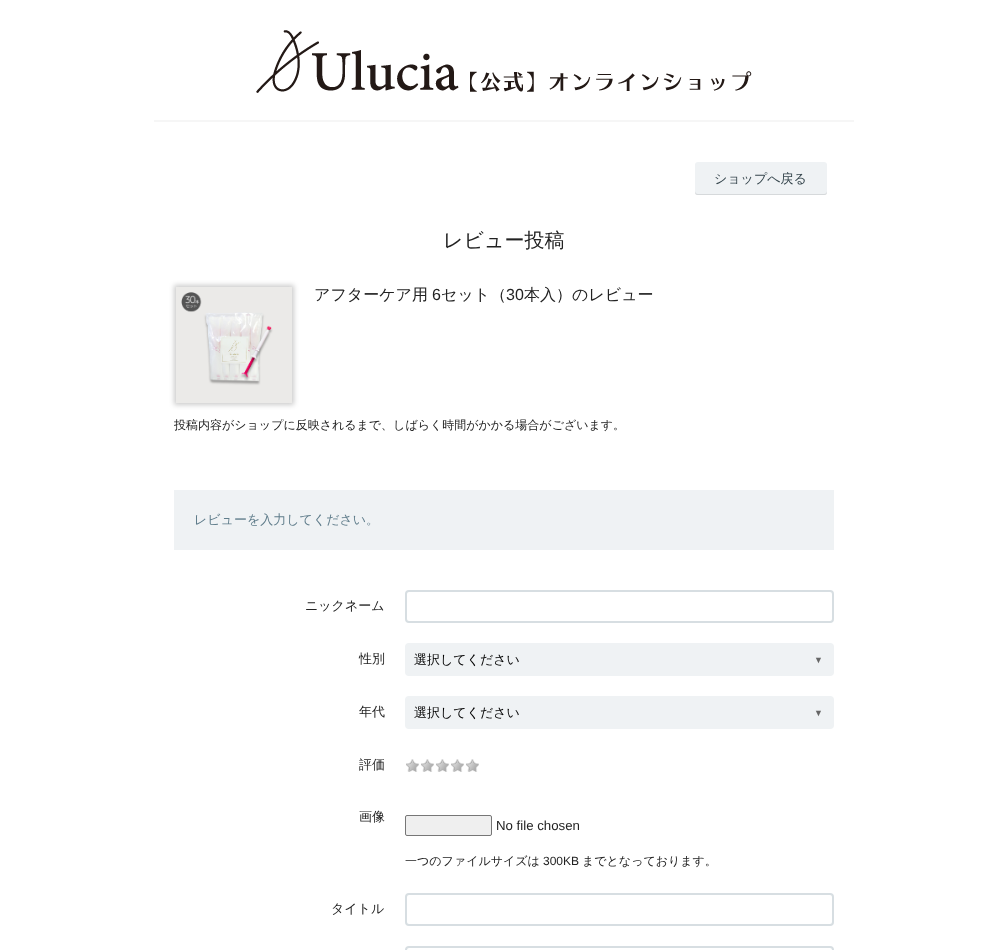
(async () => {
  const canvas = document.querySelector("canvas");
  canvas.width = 1007;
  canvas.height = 950;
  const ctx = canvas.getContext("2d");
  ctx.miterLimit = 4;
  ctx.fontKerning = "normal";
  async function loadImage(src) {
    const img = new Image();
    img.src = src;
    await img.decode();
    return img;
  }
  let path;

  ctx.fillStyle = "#ffffff";
  ctx.fillRect(0, 0, 1007, 950);
  ctx.drawImage(await loadImage("img/1.png"), 256, 30, 496, 63);
  ctx.fillStyle = "#f6f6f6";
  ctx.fillRect(154, 120, 700, 2);
  ctx.fillStyle = "#eff2f4";
  ctx.beginPath();
  ctx.roundRect(695, 162, 132, 33, 3);
  ctx.fill();
  ctx.fillStyle = "rgba(0, 0, 0, 0.1)";
  path = new Path2D("M695 191C695 193 695 195 697 195H825C827 195 827 193 827 191C827 192 826 194 824 194H698C696 194 695 192 695 191Z");
  ctx.fill(path);
  ctx.fillStyle = "rgba(0, 0, 0, 0.2)";
  ctx.filter = "blur(2.5px)";
  ctx.beginPath();
  ctx.rect(174, 285, 120, 120);
  ctx.fill();
  ctx.filter = "none";
  ctx.drawImage(await loadImage("img/2.png"), 176, 287, 116, 116);
  ctx.fillStyle = "#eff2f4";
  ctx.fillRect(174, 490, 660, 60);
  ctx.beginPath();
  ctx.roundRect(406, 591, 427, 31, 3);
  ctx.strokeStyle = "#d7dee2";
  ctx.lineWidth = 2;
  ctx.stroke();
  ctx.beginPath();
  ctx.roundRect(406, 644, 427, 31, 3);
  ctx.fill();
  ctx.strokeStyle = "#eff2f4";
  ctx.stroke();
  ctx.beginPath();
  ctx.roundRect(406, 697, 427, 31, 3);
  ctx.fill();
  ctx.stroke();
  ctx.drawImage(await loadImage("img/3.png"), 406, 759, 13, 13);
  ctx.drawImage(await loadImage("img/3.png"), 421, 759, 13, 13);
  ctx.drawImage(await loadImage("img/3.png"), 436, 759, 13, 13);
  ctx.drawImage(await loadImage("img/3.png"), 451, 759, 13, 13);
  ctx.drawImage(await loadImage("img/3.png"), 466, 759, 13, 13);
  ctx.fillStyle = "#efefef";
  ctx.beginPath();
  ctx.roundRect(405.5, 815.5, 86, 20, 1.5);
  ctx.fill();
  ctx.strokeStyle = "#767676";
  ctx.lineWidth = 1;
  ctx.stroke();
  ctx.beginPath();
  ctx.roundRect(406, 894, 427, 31, 3);
  ctx.strokeStyle = "#d7dee2";
  ctx.lineWidth = 2;
  ctx.stroke();
  ctx.beginPath();
  ctx.roundRect(406, 947, 427, 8, 3);
  ctx.stroke();
  ctx.font = "500 13px WenQuanYi Zen Hei";
  ctx.fillStyle = "#35454c";
  ctx.fillText("ショップへ戻る", 714, 183);
  ctx.font = "500 20px WenQuanYi Zen Hei";
  ctx.fillStyle = "#222222";
  ctx.fillText("レビュー投稿", 443, 247);
  ctx.font = "500 16px WenQuanYi Zen Hei";
  ctx.fillText("アフターケア用", 314, 300);
  ctx.font = "16px Liberation Sans";
  ctx.fillText("6", 432, 300);
  ctx.font = "500 16px WenQuanYi Zen Hei";
  ctx.fillText("セット（", 441, 300);
  ctx.font = "16px Liberation Sans";
  ctx.fillText("30", 506, 300);
  ctx.font = "500 16px WenQuanYi Zen Hei";
  ctx.fillText("本入）のレビュー", 524, 300);
  ctx.font = "500 12px WenQuanYi Zen Hei";
  ctx.fillText("投稿内容がショップに反映されるまで、しばらく時間がかかる場合がございます。", 174, 429);
  ctx.font = "500 13px WenQuanYi Zen Hei";
  ctx.fillStyle = "#607d8b";
  ctx.fillText("レビューを入力してください。", 194, 524);
  ctx.fillStyle = "#222222";
  ctx.fillText("ニックネーム", 305, 610);
  ctx.fillText("性別", 359, 663);
  ctx.fillStyle = "#000000";
  ctx.fillText("選択してください", 414, 664);
  ctx.font = "9px Liberation Sans";
  ctx.fillStyle = "#666666";
  ctx.fillText("▼", 814, 663);
  ctx.font = "500 13px WenQuanYi Zen Hei";
  ctx.fillStyle = "#222222";
  ctx.fillText("年代", 359, 716);
  ctx.fillStyle = "#000000";
  ctx.fillText("選択してください", 414, 717);
  ctx.font = "9px Liberation Sans";
  ctx.fillStyle = "#666666";
  ctx.fillText("▼", 814, 716);
  ctx.font = "500 13px WenQuanYi Zen Hei";
  ctx.fillStyle = "#222222";
  ctx.fillText("評価", 359, 769);
  ctx.fillText("画像", 359, 821);
  ctx.font = "13.25px Liberation Sans";
  ctx.fillText("No file chosen", 496, 830);
  ctx.font = "500 12px WenQuanYi Zen Hei";
  ctx.fillText("一つのファイルサイズは", 405, 865);
  ctx.font = "12px Liberation Sans";
  ctx.fillText("300KB", 543, 865);
  ctx.font = "500 12px WenQuanYi Zen Hei";
  ctx.fillText("までとなっております。", 582, 865);
  ctx.font = "500 13px WenQuanYi Zen Hei";
  ctx.fillText("タイトル", 331, 913);
})();
